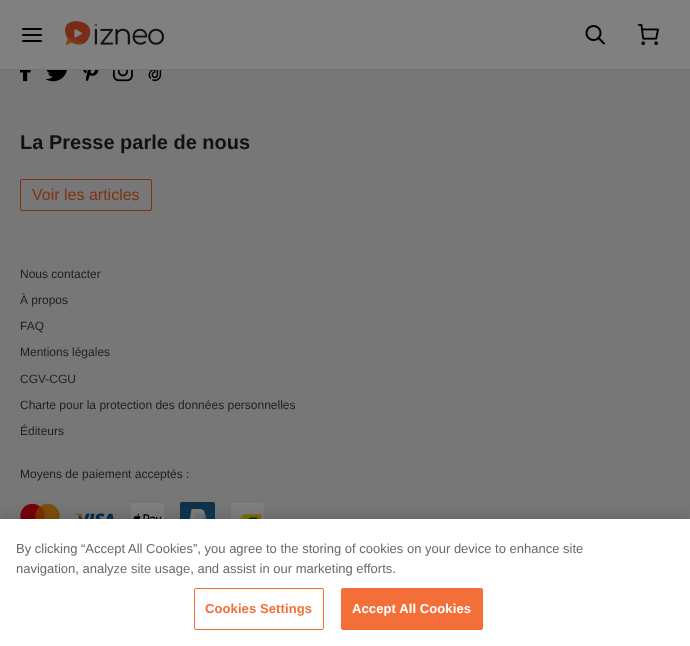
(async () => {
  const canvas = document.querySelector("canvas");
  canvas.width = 690;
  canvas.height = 646;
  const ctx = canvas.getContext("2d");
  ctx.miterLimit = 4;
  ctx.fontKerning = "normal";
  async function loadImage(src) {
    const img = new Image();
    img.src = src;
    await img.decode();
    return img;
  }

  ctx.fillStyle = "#777777";
  ctx.fillRect(0, 0, 690, 646);
  ctx.fillStyle = "#808080";
  ctx.fillRect(0, 0, 690, 69);
  ctx.fillStyle = "#737373";
  ctx.fillRect(0, 69, 690, 1);
  ctx.drawImage(await loadImage("img/1.png"), 22, 28, 20, 14);
  ctx.drawImage(await loadImage("img/2.png"), 65, 21, 99, 24);
  ctx.drawImage(await loadImage("img/3.png"), 585, 25, 20, 20);
  ctx.drawImage(await loadImage("img/4.png"), 637, 23, 22, 23);
  ctx.drawImage(await loadImage("img/5.png"), 20, 70, 11, 12);
  ctx.drawImage(await loadImage("img/6.png"), 45, 70, 22, 12);
  ctx.drawImage(await loadImage("img/7.png"), 83, 70, 16, 12);
  ctx.drawImage(await loadImage("img/8.png"), 113, 70, 20, 12);
  ctx.drawImage(await loadImage("img/9.png"), 148, 70, 14, 12);
  ctx.beginPath();
  ctx.roundRect(20.5, 179.5, 131, 31, 1.5);
  ctx.strokeStyle = "#80320f";
  ctx.stroke();
  ctx.drawImage(await loadImage("img/10.png"), 20, 503, 40, 16);
  ctx.drawImage(await loadImage("img/11.png"), 75, 513, 39, 6);
  ctx.fillStyle = "#808080";
  ctx.fillRect(130, 502, 35, 17);
  ctx.drawImage(await loadImage("img/12.png"), 130, 502, 35, 17);
  ctx.drawImage(await loadImage("img/13.png"), 180, 502, 35, 17);
  ctx.drawImage(await loadImage("img/14.png"), 231, 503, 33, 16);
  ctx.fillStyle = "rgba(0, 0, 0, 0.2)";
  ctx.filter = "blur(9px)";
  ctx.beginPath();
  ctx.rect(0, 519, 690, 127);
  ctx.fill();
  ctx.filter = "none";
  ctx.fillStyle = "#ffffff";
  ctx.fillRect(0, 519, 690, 127);
  ctx.beginPath();
  ctx.roundRect(194.5, 588.5, 129, 41, 1.5);
  ctx.strokeStyle = "#f36e39";
  ctx.stroke();
  ctx.fillStyle = "#f36e39";
  ctx.beginPath();
  ctx.roundRect(341.5, 588.5, 141, 41, 1.5);
  ctx.fill();
  ctx.stroke();
  ctx.font = "bold 20px Liberation Sans";
  ctx.fillStyle = "#111111";
  ctx.fillText("La Presse parle de nous", 20, 149);
  ctx.font = "16px Liberation Sans";
  ctx.fillStyle = "#80320f";
  ctx.fillText("Voir les articles", 32, 200);
  ctx.font = "12px Liberation Sans";
  ctx.fillStyle = "#1f1f1f";
  for (const [text, x, y] of [
    ["Nous contacter", 20, 278],
    ["À propos", 20, 304],
    ["FAQ", 20, 330],
    ["Mentions légales", 20, 356],
    ["CGV-CGU", 20, 383],
    ["Charte pour la protection des données personnelles", 20, 409],
    ["Éditeurs", 20, 435],
    ["Moyens de paiement acceptés :", 20, 478],
  ]) {
    ctx.fillText(text, x, y);
  }
  ctx.font = "13px Liberation Sans";
  ctx.fillStyle = "#696969";
  ctx.fillText("By clicking “Accept All Cookies”, you agree to the storing of cookies on your device to enhance site", 16, 553);
  ctx.fillText("navigation, analyze site usage, and assist in our marketing efforts.", 16, 573);
  ctx.letterSpacing = "0.1px";
  ctx.font = "bold 13px Liberation Sans";
  ctx.fillStyle = "#f36e39";
  ctx.fillText("Cookies Settings", 205, 613);
  ctx.fillStyle = "#ffffff";
  ctx.fillText("Accept All Cookies", 352, 613);
})();
